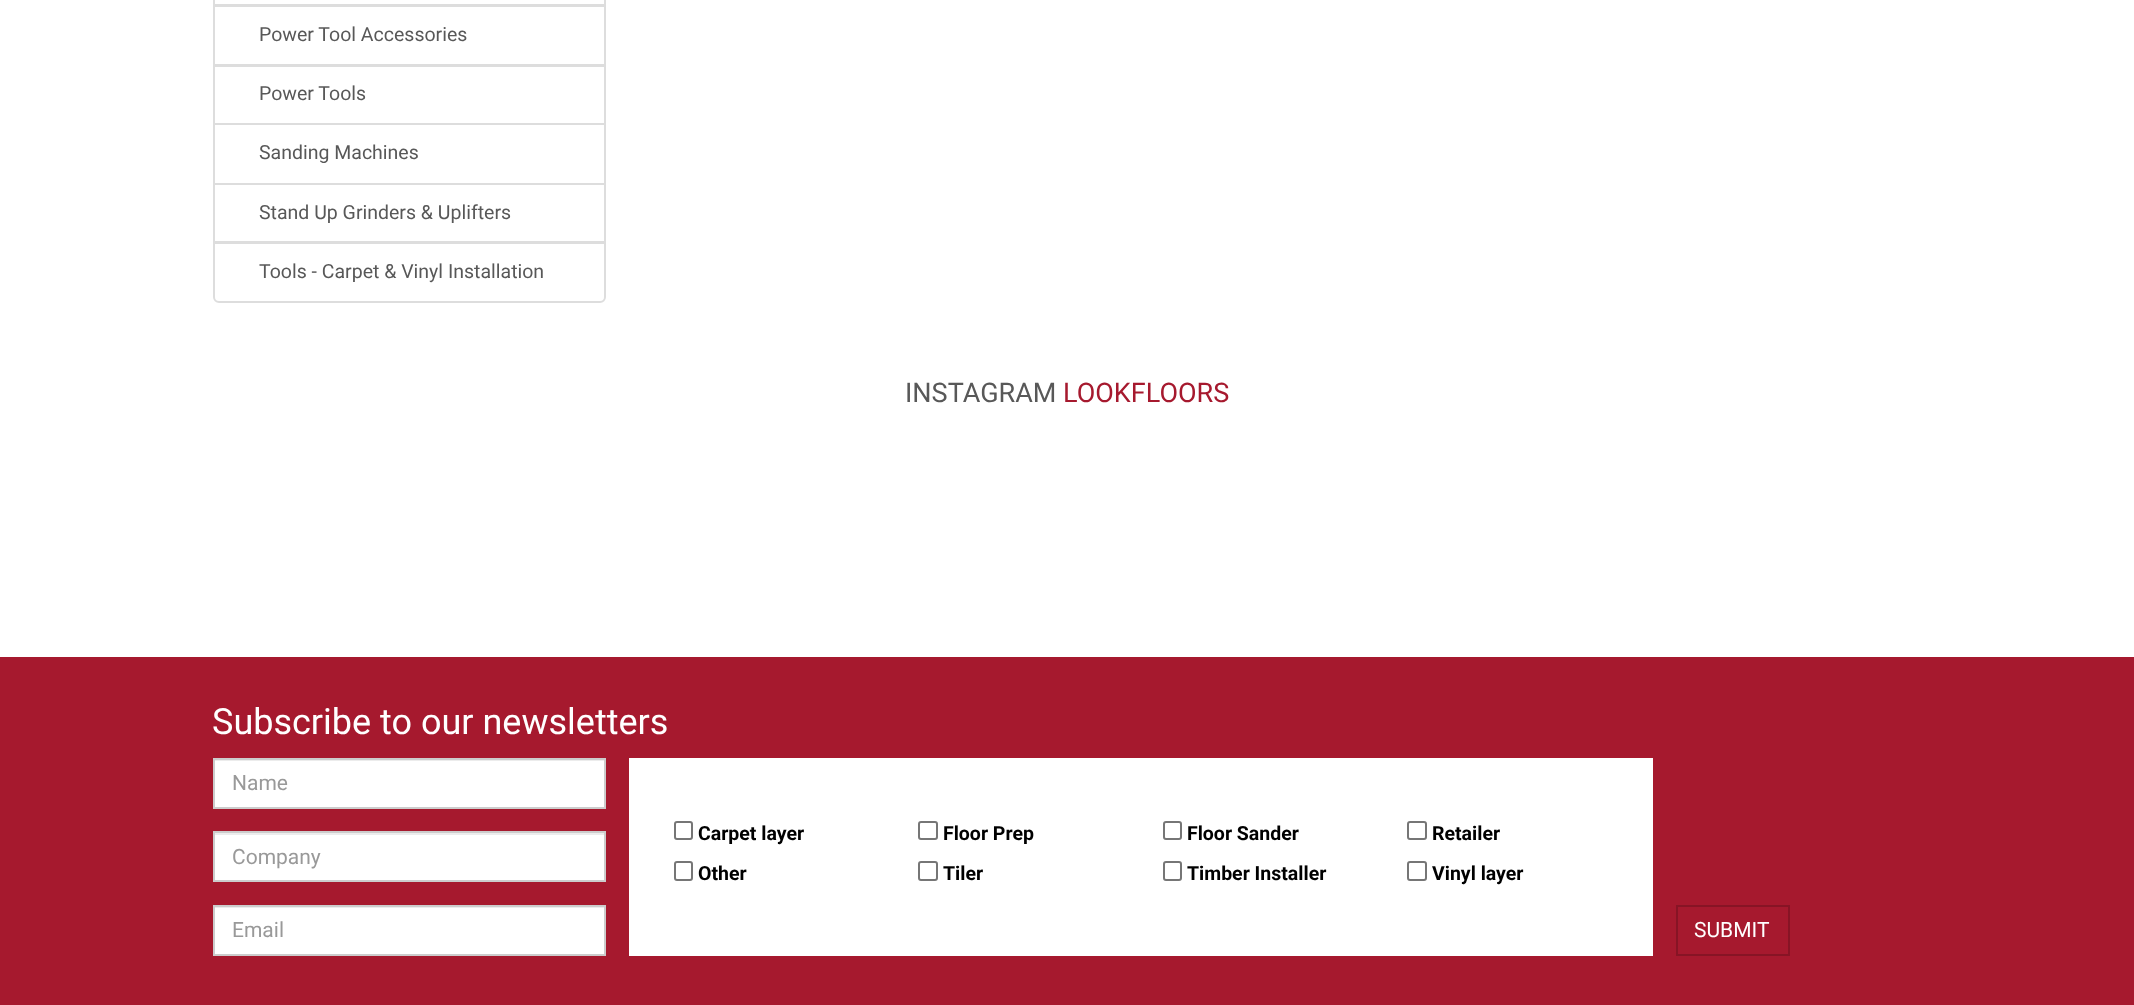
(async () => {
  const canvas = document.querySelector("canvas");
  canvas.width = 2134;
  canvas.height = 1005;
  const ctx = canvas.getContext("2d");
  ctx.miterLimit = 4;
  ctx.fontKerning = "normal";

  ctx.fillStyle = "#ffffff";
  ctx.fillRect(0, 0, 2134, 1005);
  ctx.strokeStyle = "#dddddd";
  ctx.lineWidth = 2;
  ctx.strokeRect(214, -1, 391, 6);
  ctx.strokeRect(214, 6, 391, 59);
  ctx.strokeRect(214, 66, 391, 58);
  ctx.strokeRect(214, 124, 391, 60);
  ctx.strokeRect(214, 184, 391, 58);
  ctx.beginPath();
  ctx.roundRect(214, 243, 391, 59, [0, 0, 5, 5]);
  ctx.fill();
  ctx.stroke();
  for (const [x, y, w, h, color] of [
    [0, 657, 2134, 348, "#a6192e"],
    [215, 761, 389, 46, "#ffffff"],
    [215, 760, 390, 1, "#ececec"],
  ]) {
    ctx.fillStyle = color;
    ctx.fillRect(x, y, w, h);
  }
  ctx.strokeStyle = "#cccccc";
  ctx.strokeRect(214, 759, 391, 49);
  ctx.fillStyle = "#ffffff";
  ctx.fillRect(215, 835, 389, 45);
  ctx.fillStyle = "#ececec";
  ctx.fillRect(215, 833, 390, 2);
  ctx.strokeRect(214, 832, 391, 49);
  ctx.fillStyle = "#ffffff";
  ctx.fillRect(215, 908, 389, 46);
  ctx.fillStyle = "#ececec";
  ctx.fillRect(215, 907, 390, 1);
  ctx.strokeRect(214, 906, 391, 49);
  ctx.fillStyle = "#ffffff";
  ctx.fillRect(629, 758, 1024, 198);
  ctx.beginPath();
  ctx.roundRect(675, 822, 17, 17, 2);
  ctx.strokeStyle = "#767676";
  ctx.stroke();
  ctx.beginPath();
  ctx.roundRect(919, 822, 18, 17, 2);
  ctx.stroke();
  ctx.beginPath();
  ctx.roundRect(1164, 822, 17, 17, 2);
  ctx.stroke();
  ctx.beginPath();
  ctx.roundRect(1408, 822, 18, 17, 2);
  ctx.stroke();
  ctx.beginPath();
  ctx.roundRect(675, 862, 17, 18, 2);
  ctx.stroke();
  ctx.beginPath();
  ctx.roundRect(919, 862, 18, 18, 2);
  ctx.stroke();
  ctx.beginPath();
  ctx.roundRect(1164, 862, 17, 18, 2);
  ctx.stroke();
  ctx.beginPath();
  ctx.roundRect(1408, 862, 18, 18, 2);
  ctx.stroke();
  ctx.strokeStyle = "#871425";
  ctx.strokeRect(1677, 906, 112, 49);
  ctx.font = "19.5px Roboto";
  ctx.fillStyle = "#585858";
  for (const [text, x, y] of [
    ["Power Tool Accessories", 259, 41],
    ["Power Tools", 259, 100],
    ["Sanding Machines", 259, 159],
    ["Stand Up Grinders & Uplifters", 259, 219],
    ["Tools - Carpet & Vinyl Installation", 259, 278],
  ]) {
    ctx.fillText(text, x, y);
  }
  ctx.font = "27px Roboto";
  ctx.fillText("INSTAGRAM", 905, 402);
  ctx.fillStyle = "#a6192e";
  ctx.fillText("LOOKFLOORS", 1063, 402);
  ctx.font = "36px Roboto";
  ctx.fillStyle = "#ffffff";
  ctx.fillText("Subscribe to our newsletters", 212, 734);
  ctx.font = "21px Roboto";
  ctx.fillStyle = "#999999";
  for (const [text, x, y] of [
    ["Name", 232, 790],
    ["Company", 232, 864],
    ["Email", 232, 937],
  ]) {
    ctx.fillText(text, x, y);
  }
  ctx.font = "bold 19.5px Roboto";
  ctx.fillStyle = "#000000";
  for (const [text, x, y] of [
    ["Carpet layer", 698, 840],
    ["Floor Prep", 943, 840],
    ["Floor Sander", 1187, 840],
    ["Retailer", 1432, 840],
    ["Other", 698, 880],
    ["Tiler", 943, 880],
    ["Timber Installer", 1187, 880],
    ["Vinyl layer", 1432, 880],
  ]) {
    ctx.fillText(text, x, y);
  }
  ctx.font = "21px Roboto";
  ctx.fillStyle = "#ffffff";
  ctx.fillText("SUBMIT", 1694, 937);
})();
